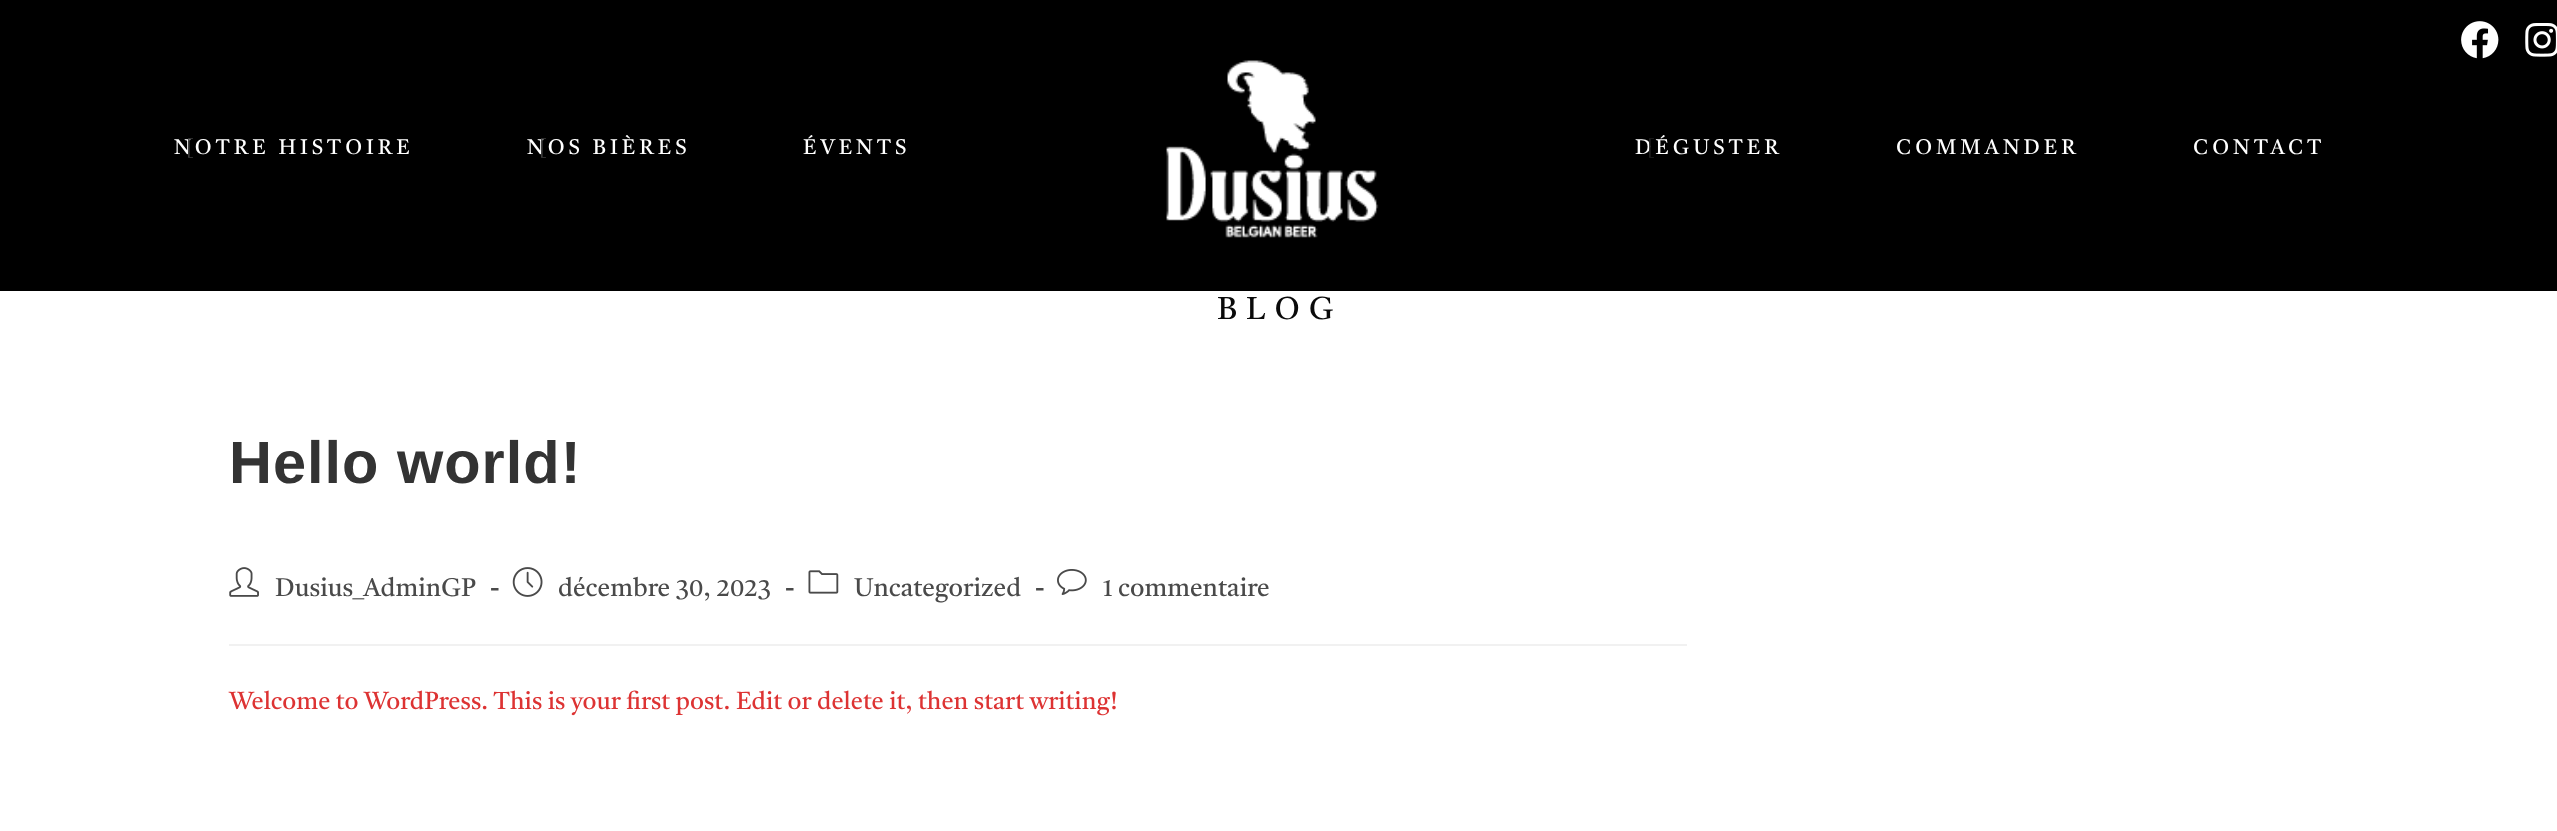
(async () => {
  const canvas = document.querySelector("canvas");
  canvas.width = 2557;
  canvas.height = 831;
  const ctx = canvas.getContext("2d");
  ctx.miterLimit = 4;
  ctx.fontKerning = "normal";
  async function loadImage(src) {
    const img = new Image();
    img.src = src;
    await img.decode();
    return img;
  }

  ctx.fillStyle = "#ffffff";
  ctx.fillRect(0, 0, 2557, 831);
  ctx.fillStyle = "#000000";
  ctx.fillRect(0, 0, 2557, 291);
  ctx.drawImage(await loadImage("img/1.png"), 2461, 21, 38, 38);
  ctx.drawImage(await loadImage("img/2.png"), 2525, 23, 32, 34);
  ctx.drawImage(await loadImage("img/3.png"), 1166, 60, 213, 178);
  ctx.fillStyle = "#f1f1f1";
  ctx.fillRect(229, 644, 1458, 2);
  ctx.drawImage(await loadImage("img/4.png"), 229, 567, 30, 30);
  ctx.drawImage(await loadImage("img/5.png"), 512, 567, 31, 30);
  ctx.drawImage(await loadImage("img/6.png"), 808, 570, 31, 24);
  ctx.drawImage(await loadImage("img/7.png"), 1057, 569, 30, 26);
  ctx.letterSpacing = "4px";
  ctx.font = "21px Tiro Tamil";
  ctx.fillStyle = "#ffffff";
  ctx.fillText("NOTRE HISTOIRE", 174, 154);
  ctx.fillStyle = "#404040";
  ctx.fillText("[", 186, 154);
  ctx.fillStyle = "#ffffff";
  ctx.fillText("NOS BIÈRES", 527, 154);
  ctx.fillStyle = "#404040";
  ctx.fillText("[", 539, 154);
  ctx.fillStyle = "#ffffff";
  ctx.fillText("ÉVENTS", 803, 154);
  ctx.fillText("DÉGUSTER", 1635, 154);
  ctx.fillStyle = "#232323";
  ctx.fillText("[", 1647, 154);
  ctx.fillStyle = "#ffffff";
  ctx.fillText("COMMANDER", 1896, 154);
  ctx.fillText("CONTACT", 2193, 154);
  ctx.letterSpacing = "9px";
  ctx.font = "31.5px Tiro Tamil";
  ctx.fillStyle = "#0a0a0a";
  ctx.fillText("BLOG", 1217, 319);
  ctx.letterSpacing = "1px";
  ctx.font = "bold 59.5px Liberation Sans";
  ctx.fillStyle = "#333333";
  ctx.fillText("Hello world!", 229, 483);
  ctx.letterSpacing = "0px";
  ctx.font = "25.4px Tiro Tamil";
  ctx.fillStyle = "#4a4a4a";
  ctx.fillText("Dusius_AdminGP", 275, 596);
  ctx.font = "bold 25.4px Tiro Tamil";
  ctx.fillText("-", 490, 596);
  ctx.font = "25.4px Tiro Tamil";
  ctx.fillText("décembre 30, 2023", 558, 596);
  ctx.font = "bold 25.4px Tiro Tamil";
  ctx.fillText("-", 785, 596);
  ctx.font = "25.4px Tiro Tamil";
  ctx.fillText("Uncategorized", 854, 596);
  ctx.font = "bold 25.4px Tiro Tamil";
  ctx.fillText("-", 1035, 596);
  ctx.font = "25.4px Tiro Tamil";
  ctx.fillText("1 commentaire", 1103, 596);
  ctx.font = "24.5px Tiro Tamil";
  ctx.fillStyle = "#dd3333";
  ctx.fillText("Welcome to WordPress. This is your first post. Edit or delete it, then start writing!", 229, 709);
})();
